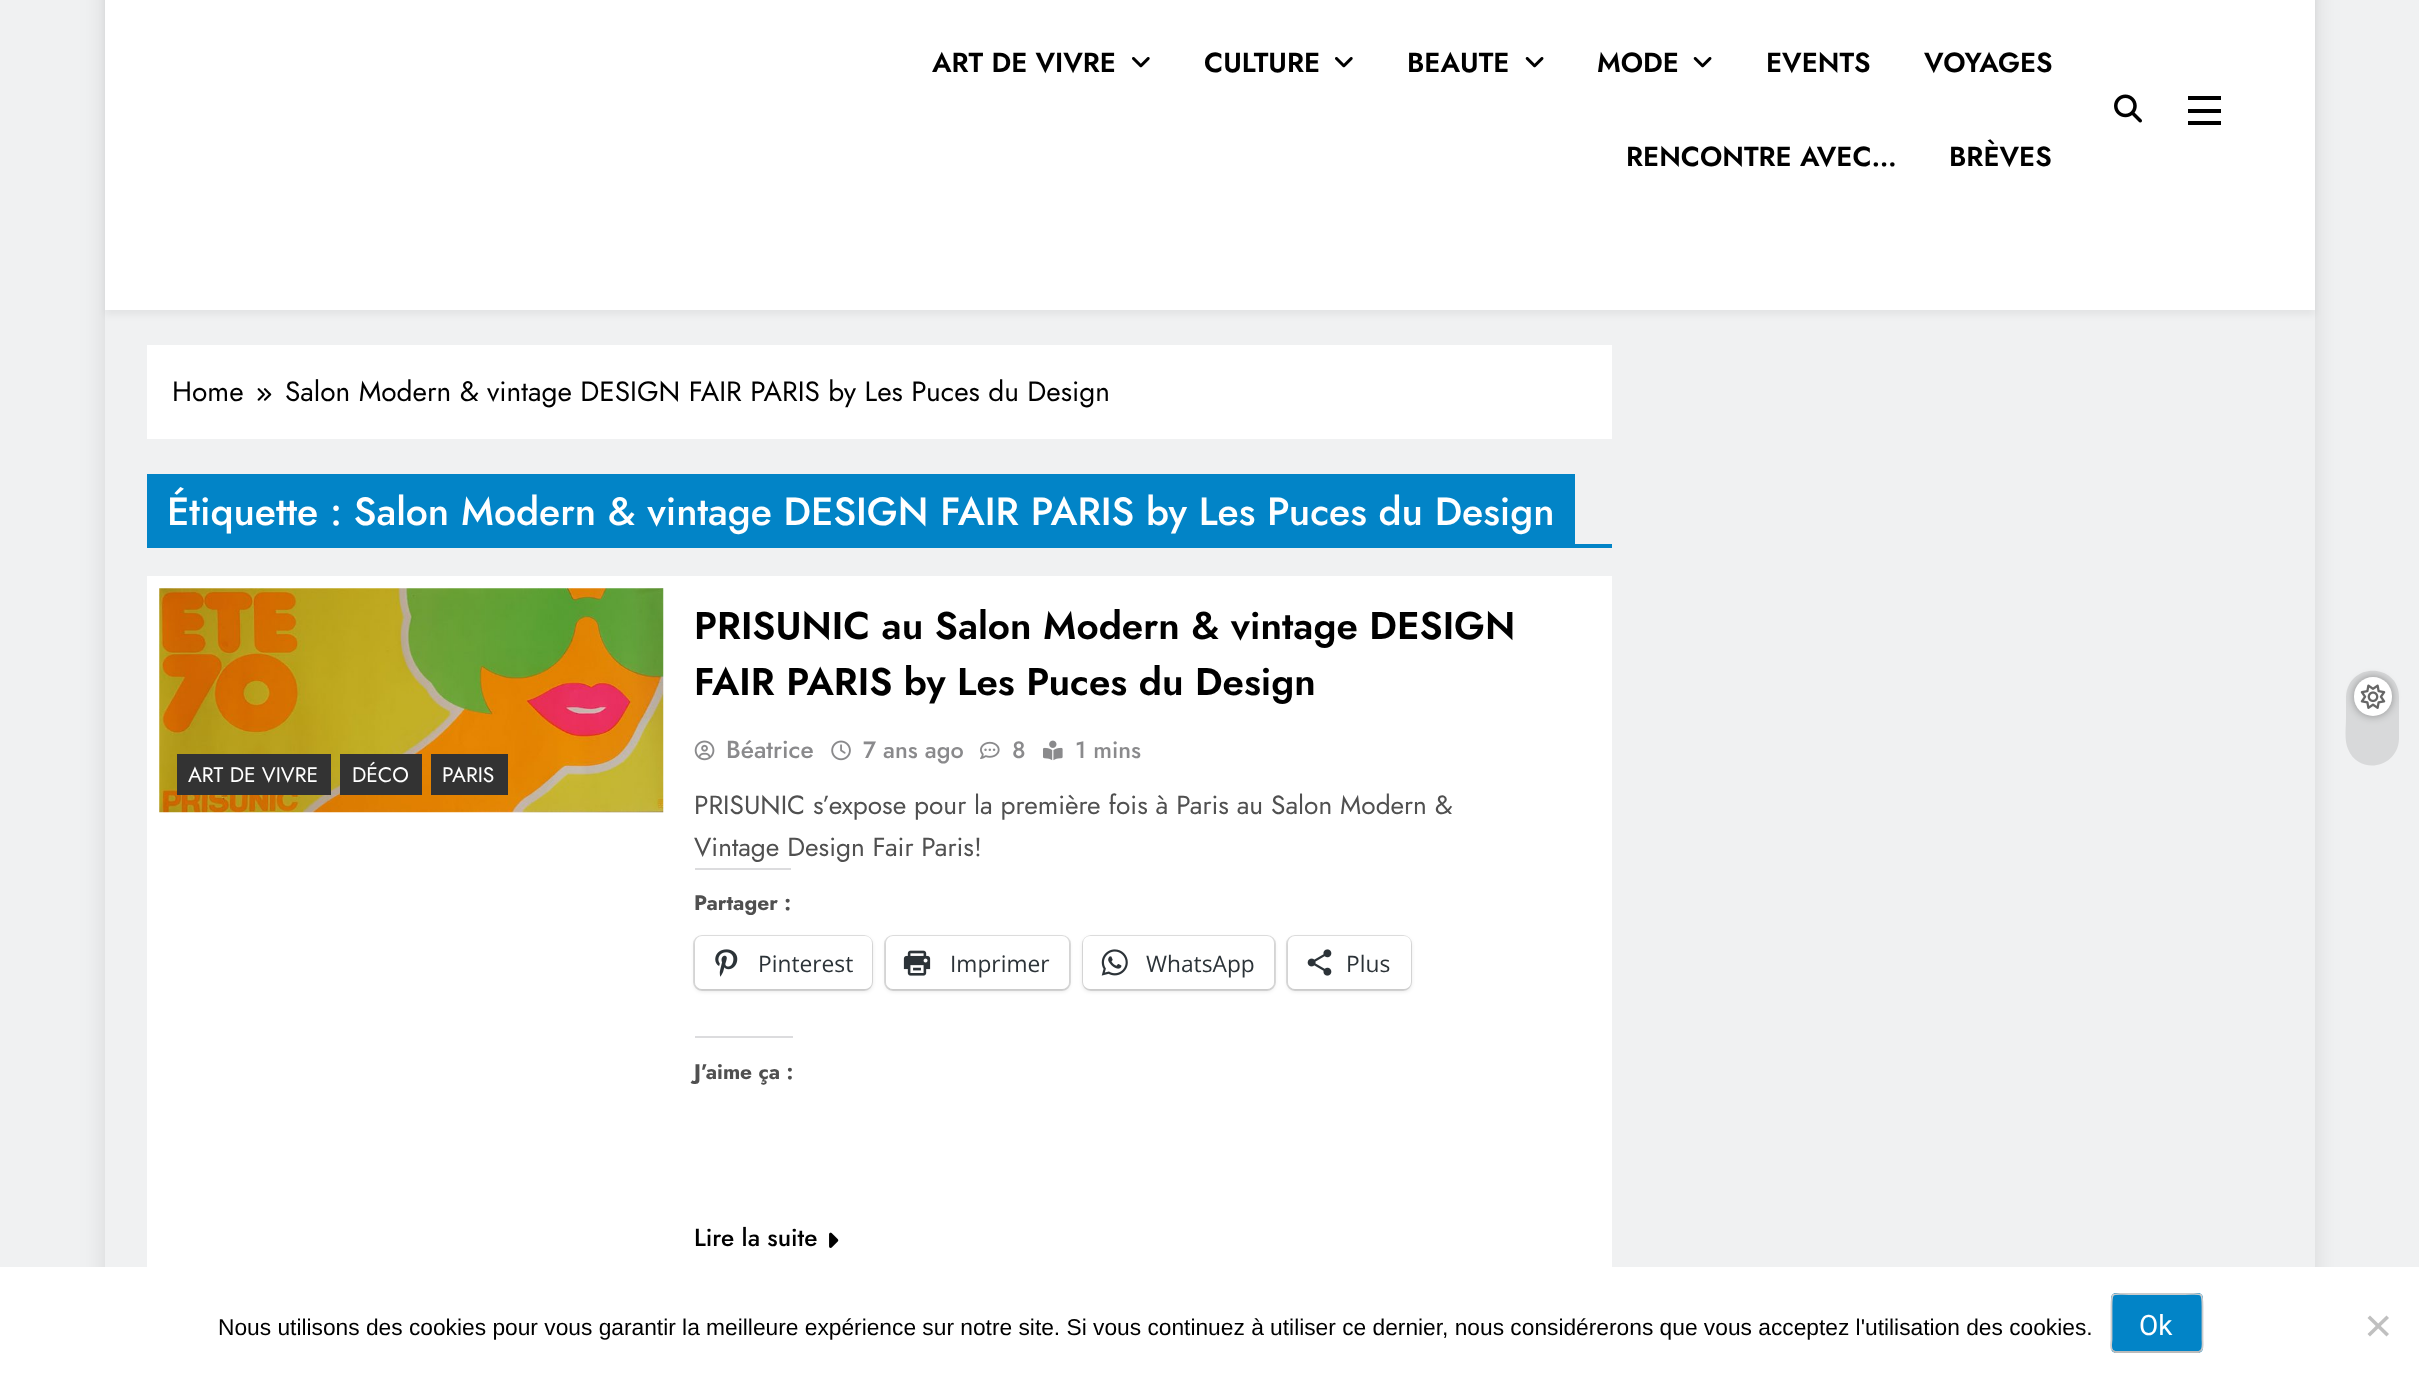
(async () => {
  const canvas = document.querySelector("canvas");
  canvas.width = 2419;
  canvas.height = 1381;
  const ctx = canvas.getContext("2d");
  ctx.miterLimit = 4;
  ctx.fontKerning = "normal";
  async function loadImage(src) {
    const img = new Image();
    img.src = src;
    await img.decode();
    return img;
  }
  let path;

  ctx.fillStyle = "#f0f1f2";
  ctx.fillRect(0, 0, 2419, 1381);
  ctx.save();
  path = new Path2D("M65 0H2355V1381H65ZM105-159H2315V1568H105Z");
  ctx.clip(path, "evenodd");
  ctx.fillStyle = "rgba(0, 0, 0, 0.1)";
  ctx.filter = "blur(13px)";
  ctx.beginPath();
  ctx.rect(105, -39, 2210, 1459);
  ctx.fill();
  ctx.filter = "none";
  ctx.restore();
  ctx.fillStyle = "rgba(0, 0, 0, 0.05)";
  ctx.filter = "blur(3.5px)";
  ctx.beginPath();
  ctx.rect(105, -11, 2210, 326);
  ctx.fill();
  ctx.filter = "none";
  ctx.fillStyle = "#ffffff";
  ctx.fillRect(105, 0, 2210, 310);
  ctx.drawImage(await loadImage("img/1.png"), 1132, 57, 18, 11);
  ctx.drawImage(await loadImage("img/1.png"), 1335, 57, 18, 11);
  ctx.drawImage(await loadImage("img/2.png"), 1525, 57, 19, 11);
  ctx.drawImage(await loadImage("img/2.png"), 1693, 57, 19, 11);
  ctx.drawImage(await loadImage("img/3.png"), 2114, 94, 28, 29);
  for (const [x, y, w, h, color] of [
    [2188, 96, 33, 4, "#000000"],
    [2188, 109, 33, 4, "#000000"],
    [2188, 121, 33, 4, "#000000"],
  ]) {
    ctx.fillStyle = color;
    ctx.fillRect(x, y, w, h);
  }
  ctx.fillStyle = "#d8d9da";
  path = new Path2D("M2399 697V739C2398 768 2359 776 2348 749C2344 740 2346 727 2346 718V697C2348 661 2399 663 2399 697Z");
  ctx.fill(path);
  ctx.fillStyle = "rgba(0, 0, 0, 0.35)";
  ctx.filter = "blur(4.5px)";
  ctx.beginPath();
  ctx.roundRect(2354, 677, 38, 39, 19);
  ctx.fill();
  ctx.filter = "none";
  ctx.fillStyle = "#ffffff";
  ctx.beginPath();
  ctx.roundRect(2354, 677, 38, 39, 19);
  ctx.fill();
  ctx.drawImage(await loadImage("img/4.png"), 2360, 684, 26, 25);
  ctx.fillRect(147, 345, 1465, 94);
  ctx.drawImage(await loadImage("img/5.png"), 257, 388, 15, 13);
  for (const [x, y, w, h, color] of [
    [1575, 544, 37, 4, "#0284c7"],
    [147, 474, 1428, 74, "#0284c7"],
    [147, 576, 1465, 691, "#ffffff"],
  ]) {
    ctx.fillStyle = color;
    ctx.fillRect(x, y, w, h);
  }
  ctx.drawImage(await loadImage("img/6.png"), 159, 588, 505, 225);
  for (const [x, y, w, h, color] of [
    [177, 754, 154, 41, "#333333"],
    [340, 754, 82, 41, "#333333"],
    [431, 754, 77, 41, "#333333"],
  ]) {
    ctx.fillStyle = color;
    ctx.fillRect(x, y, w, h);
  }
  ctx.drawImage(await loadImage("img/7.png"), 694, 740, 21, 21);
  ctx.drawImage(await loadImage("img/8.png"), 831, 740, 20, 21);
  ctx.drawImage(await loadImage("img/9.png"), 980, 741, 20, 18);
  ctx.drawImage(await loadImage("img/10.png"), 1043, 740, 20, 21);
  ctx.fillStyle = "#dcdcde";
  ctx.fillRect(695, 868, 96, 2);
  ctx.beginPath();
  ctx.roundRect(694, 936, 178, 54, 8);
  ctx.strokeStyle = "#e0e0e0";
  ctx.lineWidth = 2;
  ctx.stroke();
  ctx.fillStyle = "rgba(0, 0, 0, 0.12)";
  ctx.filter = "blur(2px)";
  ctx.beginPath();
  ctx.roundRect(695, 938, 177, 53, 7);
  ctx.fill();
  ctx.filter = "none";
  ctx.fillStyle = "#ffffff";
  ctx.beginPath();
  ctx.roundRect(695, 936, 177, 53, 7);
  ctx.fill();
  ctx.drawImage(await loadImage("img/11.png"), 715, 949, 23, 28);
  ctx.beginPath();
  ctx.roundRect(885, 936, 185, 54, 8);
  ctx.stroke();
  ctx.fillStyle = "rgba(0, 0, 0, 0.12)";
  ctx.filter = "blur(2px)";
  ctx.beginPath();
  ctx.roundRect(886, 938, 183, 53, 7);
  ctx.fill();
  ctx.filter = "none";
  ctx.fillStyle = "#ffffff";
  ctx.beginPath();
  ctx.roundRect(886, 936, 183, 53, 7);
  ctx.fill();
  ctx.drawImage(await loadImage("img/12.png"), 903, 950, 28, 26);
  ctx.beginPath();
  ctx.roundRect(1083, 936, 192, 54, 8);
  ctx.stroke();
  ctx.fillStyle = "rgba(0, 0, 0, 0.12)";
  ctx.filter = "blur(2px)";
  ctx.beginPath();
  ctx.roundRect(1083, 938, 191, 53, 7);
  ctx.fill();
  ctx.filter = "none";
  ctx.fillStyle = "#ffffff";
  ctx.beginPath();
  ctx.roundRect(1083, 936, 191, 53, 7);
  ctx.fill();
  ctx.drawImage(await loadImage("img/13.png"), 1101, 949, 27, 27);
  ctx.beginPath();
  ctx.roundRect(1287, 936, 124, 54, 8);
  ctx.stroke();
  ctx.fillStyle = "rgba(0, 0, 0, 0.12)";
  ctx.filter = "blur(2px)";
  ctx.beginPath();
  ctx.roundRect(1288, 938, 123, 53, 7);
  ctx.fill();
  ctx.filter = "none";
  ctx.fillStyle = "#ffffff";
  ctx.beginPath();
  ctx.roundRect(1288, 936, 123, 53, 7);
  ctx.fill();
  ctx.drawImage(await loadImage("img/14.png"), 1307, 949, 25, 27);
  ctx.fillStyle = "#dcdcde";
  ctx.fillRect(695, 1036, 98, 2);
  ctx.drawImage(await loadImage("img/15.png"), 829, 1232, 10, 16);
  ctx.fillStyle = "#ffffff";
  ctx.fillRect(0, 1267, 2419, 114);
  ctx.fillStyle = "#0284c7";
  ctx.beginPath();
  ctx.roundRect(2111, 1293, 92, 60, 5);
  ctx.fill();
  path = new Path2D("M2201 1350.5L2198.5 1352H2115.5L2112.5 1350.5");
  ctx.strokeStyle = "#bbbbbb";
  ctx.lineWidth = 1.8;
  ctx.stroke(path);
  path = new Path2D("M2112.5 1350.5C2110 1348 2111.5 1341.5 2111.5 1339.5V1306.5C2111.5 1291 2112 1294 2129.5 1294H2184.5C2202 1294 2202.5 1291 2202.5 1306.5V1339.5C2202.5 1341.5 2203.5 1348 2201 1350.5");
  ctx.strokeStyle = "#cccccc";
  ctx.stroke(path);
  ctx.fillStyle = "#c0c0c0";
  path = new Path2D("M2386.5 1315.5L2389 1318L2370 1336.5L2367.5 1334Z");
  ctx.fill(path);
  path = new Path2D("M2367.5 1318L2370 1315.5L2389 1334L2386.5 1336.5Z");
  ctx.fill(path);
  ctx.font = "600 27.5px Jost";
  ctx.fillStyle = "#000000";
  for (const [text, x, y] of [
    ["ART DE VIVRE", 932, 72],
    ["CULTURE", 1204, 72],
    ["BEAUTE", 1407, 72],
    ["MODE", 1597, 72],
    ["EVENTS", 1766, 72],
    ["VOYAGES", 1924, 72],
    ["RENCONTRE AVEC…", 1626, 166],
    ["BRÈVES", 1949, 166],
  ]) {
    ctx.fillText(text, x, y);
  }
  ctx.font = "28px Jost";
  ctx.fillText("Home", 172, 401);
  ctx.fillText("Salon Modern & vintage DESIGN FAIR PARIS by Les Puces du Design", 285, 401);
  ctx.font = "500 39.15px Jost";
  ctx.fillStyle = "#ffffff";
  ctx.fillText("Étiquette : Salon Modern & vintage DESIGN FAIR PARIS by Les Puces du Design", 167, 525);
  ctx.font = "21px Jost";
  for (const [text, x, y] of [
    ["ART DE VIVRE", 188, 782],
    ["DÉCO", 352, 782],
    ["PARIS", 442, 782],
  ]) {
    ctx.fillText(text, x, y);
  }
  ctx.font = "600 38.5px Jost";
  ctx.fillStyle = "#000000";
  ctx.fillText("PRISUNIC au Salon Modern & vintage DESIGN", 694, 639);
  ctx.fillText("FAIR PARIS by Les Puces du Design", 694, 695);
  ctx.font = "500 24.5px Jost";
  ctx.fillStyle = "#8a8a8c";
  ctx.fillText("Béatrice", 726, 758);
  ctx.font = "500 23.5px Jost";
  for (const [text, x, y] of [
    ["7 ans ago", 863, 758],
    ["8", 1012, 758],
    ["1 mins", 1075, 758],
  ]) {
    ctx.fillText(text, x, y);
  }
  ctx.font = "26.25px Jost";
  ctx.fillStyle = "#505050";
  ctx.fillText("PRISUNIC s’expose pour la première fois à Paris au Salon Modern &", 694, 814);
  ctx.fillText("Vintage Design Fair Paris!", 694, 856);
  ctx.font = "bold 21px Jost";
  ctx.fillText("Partager :", 694, 910);
  ctx.font = "22.75px Open Sans";
  ctx.fillStyle = "#2c3338";
  for (const [text, x, y] of [
    ["Pinterest", 758, 972],
    ["Imprimer", 950, 972],
    ["WhatsApp", 1146, 972],
    ["Plus", 1346, 972],
  ]) {
    ctx.fillText(text, x, y);
  }
  ctx.font = "bold 21px Jost";
  ctx.fillStyle = "#505050";
  ctx.fillText("J’aime ça :", 694, 1079);
  ctx.font = "500 24.5px Jost";
  ctx.fillStyle = "#000000";
  ctx.fillText("Lire la suite", 694, 1246);
  ctx.font = "22.75px Liberation Sans";
  ctx.fillText("Nous utilisons des cookies pour vous garantir la meilleure expérience sur notre site. Si vous continuez à utiliser ce dernier, nous considérerons que vous acceptez l'utilisation des cookies.", 218, 1335);
  ctx.font = "28px Roboto";
  ctx.fillStyle = "#ffffff";
  ctx.fillText("Ok", 2139, 1335);
})();
